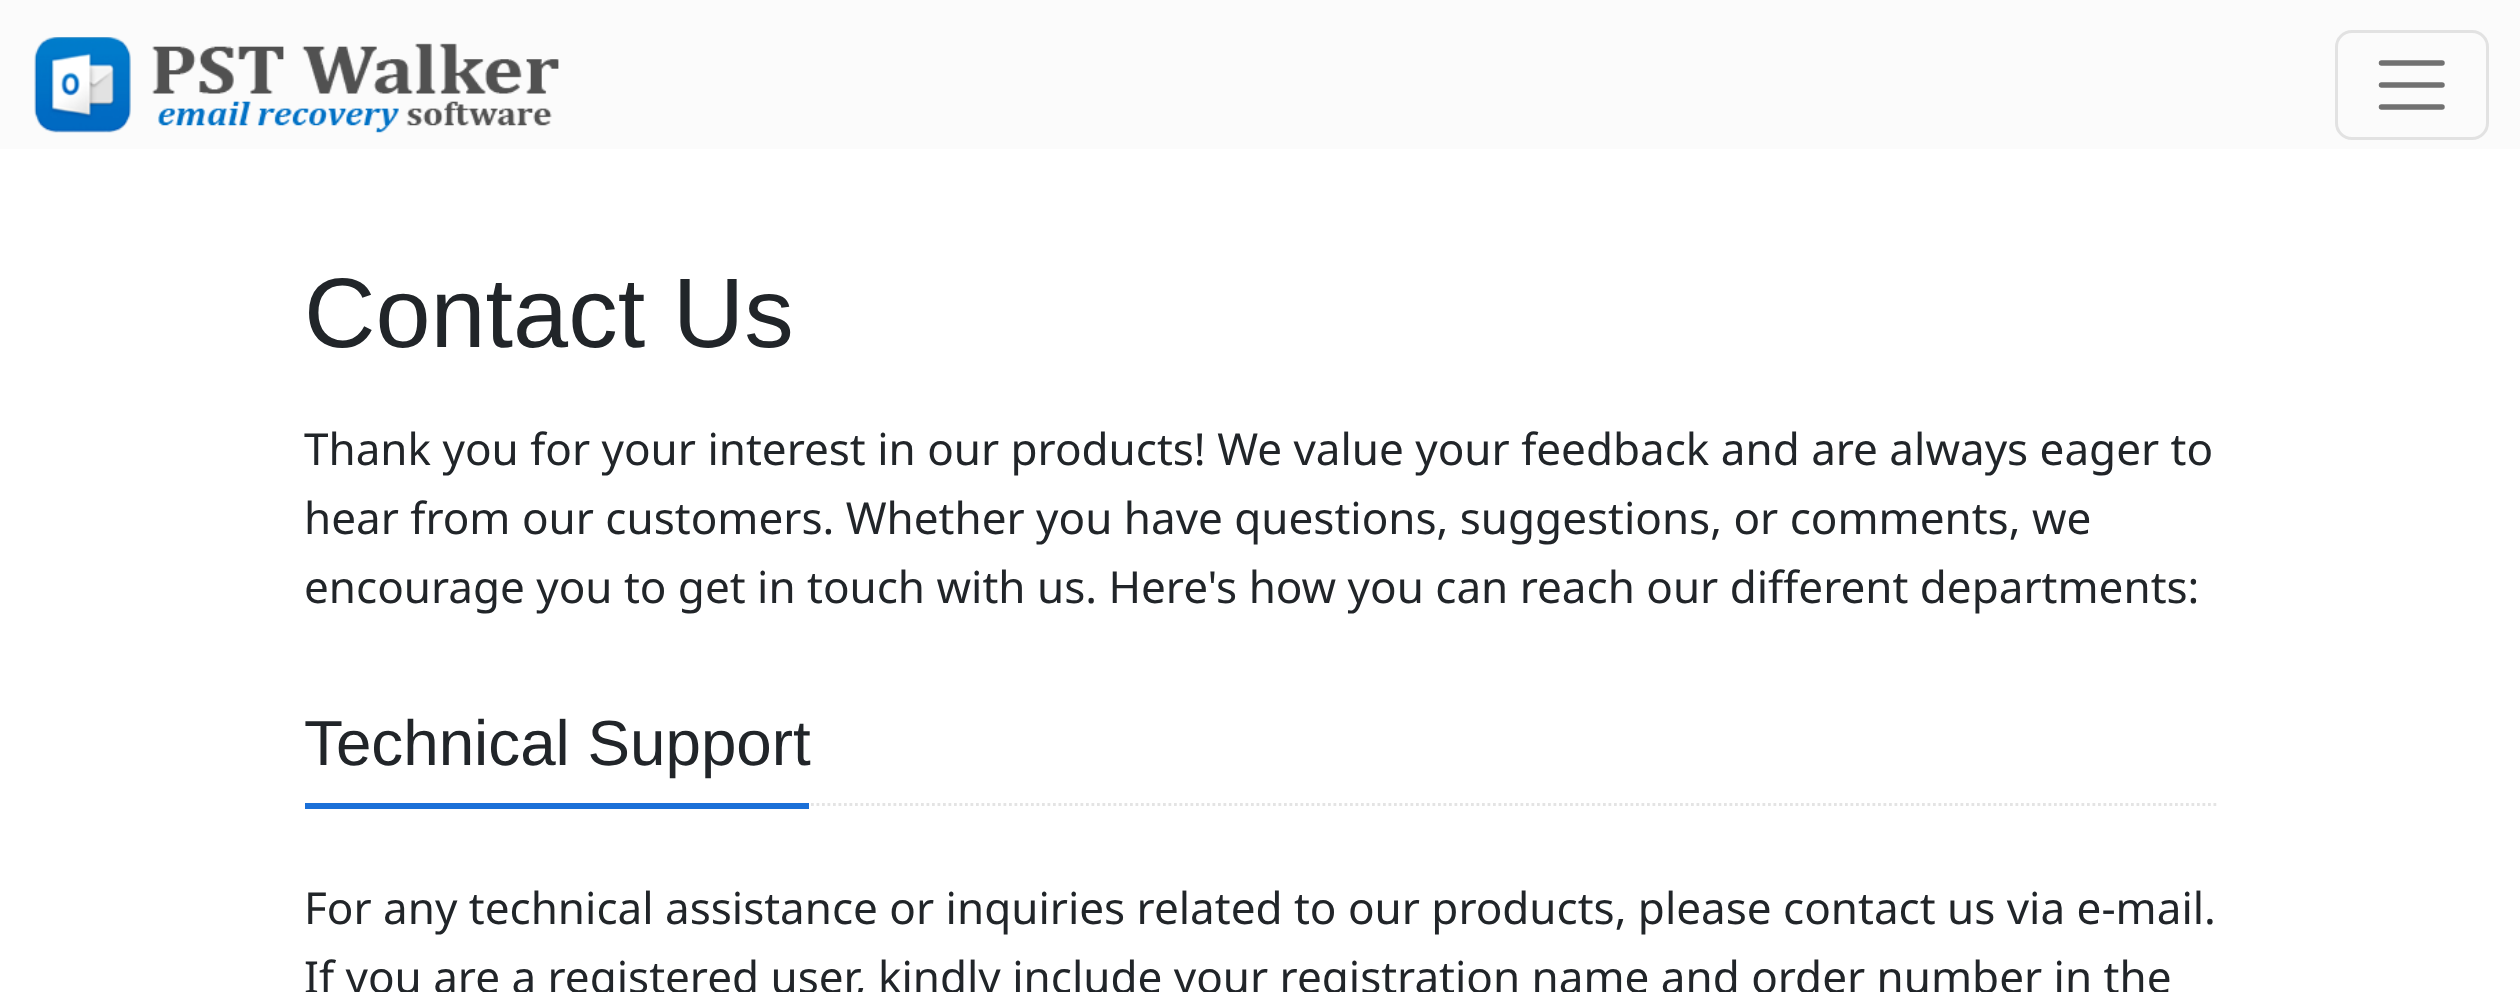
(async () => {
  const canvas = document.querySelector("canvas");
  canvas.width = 2520;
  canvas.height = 992;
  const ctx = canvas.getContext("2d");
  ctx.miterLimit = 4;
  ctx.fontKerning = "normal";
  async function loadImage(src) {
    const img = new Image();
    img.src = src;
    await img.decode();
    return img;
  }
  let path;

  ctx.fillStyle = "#ffffff";
  ctx.fillRect(0, 0, 2520, 992);
  ctx.fillStyle = "#fbfbfb";
  ctx.fillRect(0, 0, 2520, 149);
  ctx.drawImage(await loadImage("img/1.png"), 34, 37, 525, 96);
  ctx.beginPath();
  ctx.roundRect(2336.5, 31.5, 151, 107, 15.5);
  ctx.strokeStyle = "#e2e2e2";
  ctx.lineWidth = 3;
  ctx.stroke();
  path = new Path2D("M2381.5 63H2442M2381.5 85H2442M2381.5 107H2442");
  ctx.strokeStyle = "#717171";
  ctx.lineWidth = 5.5;
  ctx.lineCap = "round";
  ctx.stroke(path);
  path = new Path2D("M305 804.5H2219");
  ctx.strokeStyle = "#e4e4e4";
  ctx.lineWidth = 2.8;
  ctx.lineCap = "butt";
  ctx.setLineDash([2.75, 2.75]);
  ctx.stroke(path);
  ctx.fillStyle = "#1b70d8";
  ctx.fillRect(305, 803, 504, 6);
  ctx.font = "99px Liberation Sans";
  ctx.fillStyle = "#212529";
  ctx.fillText("Contact Us", 304, 347);
  ctx.font = "44px Noto Sans";
  for (const [text, x, y] of [
    ["Thank you for your interest in our products! We value your feedback and are always eager to", 304, 465],
    ["hear from our customers. Whether you have questions, suggestions, or comments, we", 304, 534],
    ["encourage you to get in touch with us. Here's how you can reach our different departments:", 304, 603],
  ]) {
    ctx.fillText(text, x, y);
  }
  ctx.font = "63.75px Liberation Sans";
  ctx.fillText("Technical Support", 304, 765);
  ctx.font = "44px Noto Sans";
  ctx.fillText("For any technical assistance or inquiries related to our products, please contact us via e-mail.", 304, 924);
  ctx.fillText("If you are a registered user, kindly include your registration name and order number in the", 304, 993);
})();
